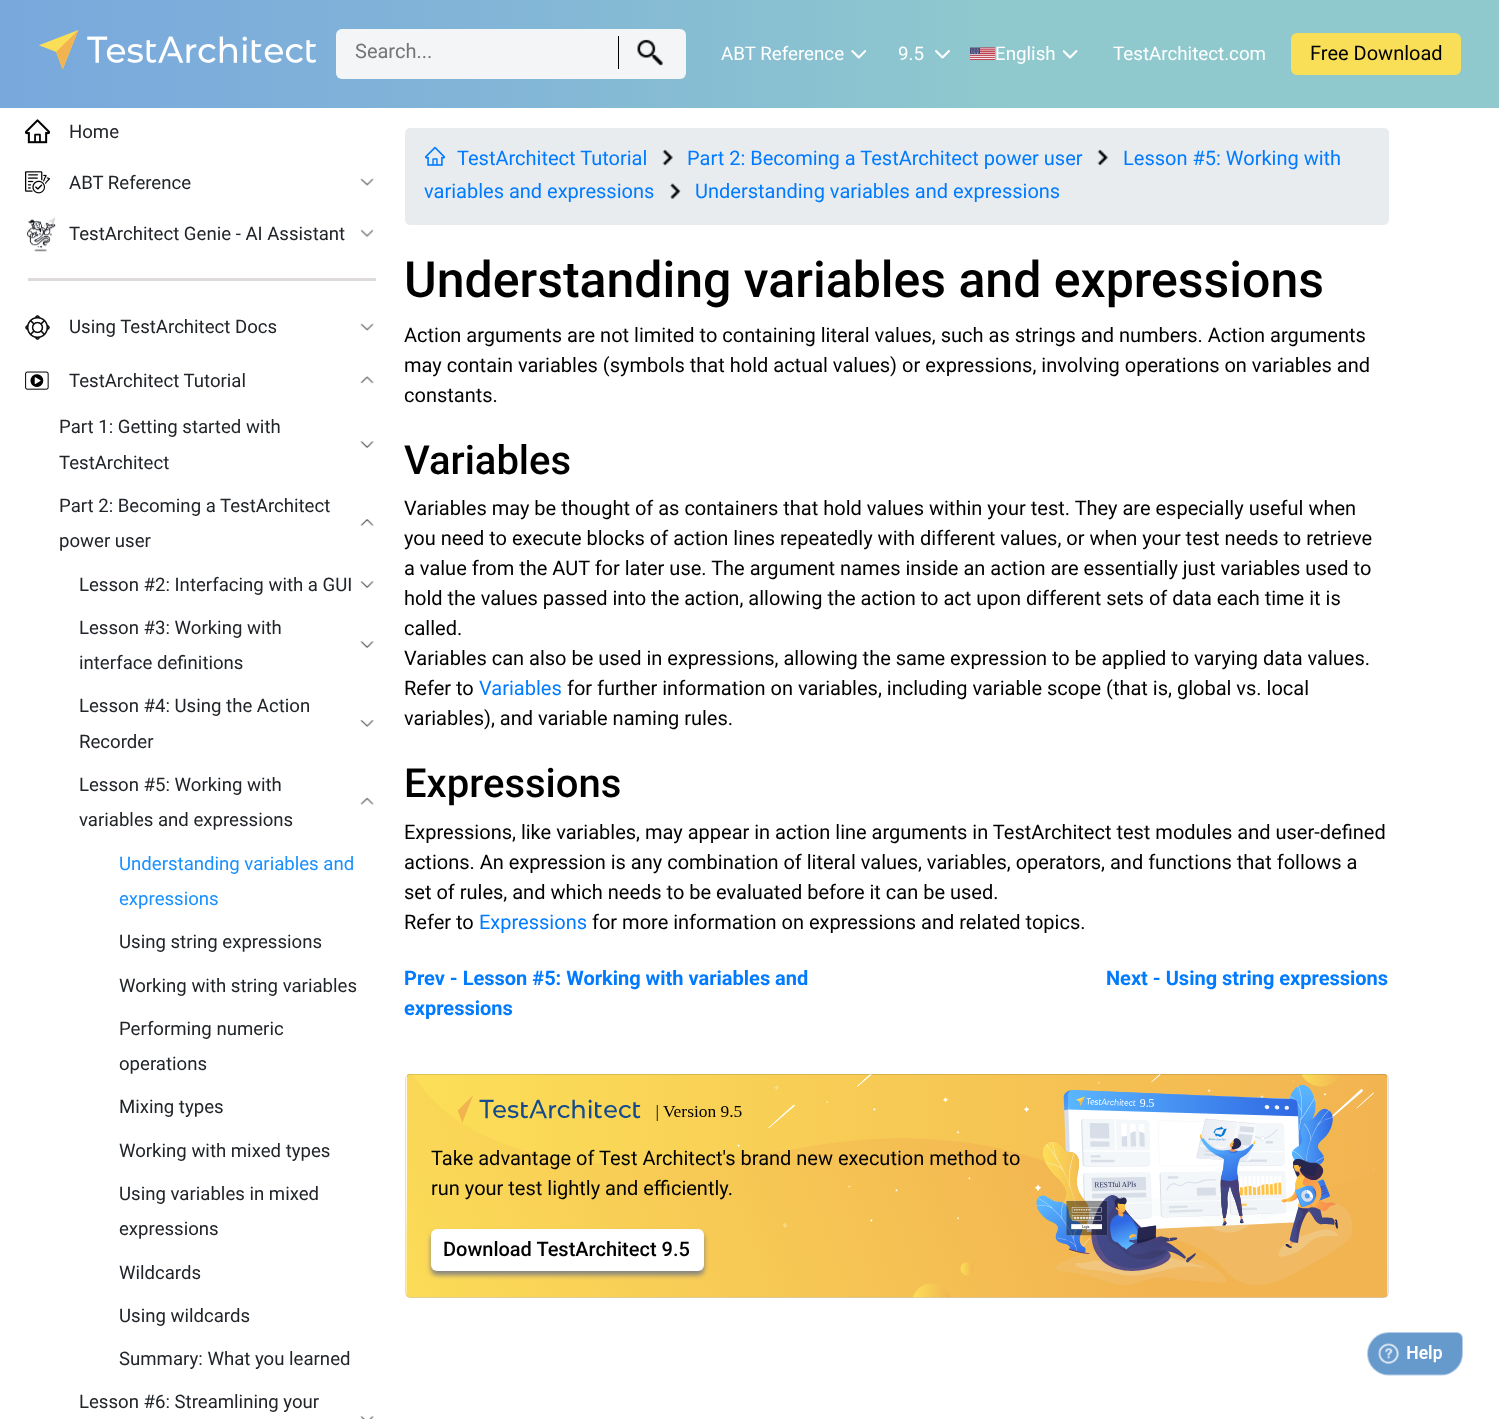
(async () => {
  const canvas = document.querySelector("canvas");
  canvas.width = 1499;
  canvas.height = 1419;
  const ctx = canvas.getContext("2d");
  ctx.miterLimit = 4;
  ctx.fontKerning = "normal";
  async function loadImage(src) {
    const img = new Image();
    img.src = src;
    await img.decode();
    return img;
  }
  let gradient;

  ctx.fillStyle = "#ffffff";
  ctx.fillRect(0, 0, 1499, 1419);
  gradient = ctx.createLinearGradient(0, 54, 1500, 54);
  gradient.addColorStop(0, "#79a8dd");
  gradient.addColorStop(0.33, "#82b5d7");
  gradient.addColorStop(0.67, "#8fc9cd");
  gradient.addColorStop(1, "#8fc9cd");
  ctx.fillStyle = gradient;
  ctx.fillRect(0, 0, 1499, 108);
  ctx.drawImage(await loadImage("img/1.png"), 39, 30, 277, 39);
  ctx.fillStyle = "#f4f5f7";
  ctx.beginPath();
  ctx.roundRect(336, 29, 350, 50, 6);
  ctx.fill();
  ctx.fillStyle = "#000000";
  ctx.fillRect(618, 36, 1, 33);
  ctx.drawImage(await loadImage("img/2.png"), 637, 39, 26, 27);
  ctx.drawImage(await loadImage("img/3.png"), 851, 50, 15, 9);
  ctx.drawImage(await loadImage("img/4.png"), 935, 50, 15, 9);
  ctx.drawImage(await loadImage("img/5.png"), 970, 47, 25, 13);
  ctx.drawImage(await loadImage("img/6.png"), 1063, 50, 15, 9);
  ctx.fillStyle = "#f9df58";
  ctx.beginPath();
  ctx.roundRect(1291, 33, 170, 42, 6);
  ctx.fill();
  ctx.drawImage(await loadImage("img/7.png"), 25, 119, 25, 25);
  ctx.drawImage(await loadImage("img/8.png"), 25, 171, 25, 23);
  ctx.drawImage(await loadImage("img/9.png"), 360, 178, 14, 8);
  ctx.drawImage(await loadImage("img/10.png"), 27, 217, 29, 35);
  ctx.drawImage(await loadImage("img/11.png"), 361, 229, 13, 9);
  ctx.fillStyle = "#dfdada";
  ctx.fillRect(28, 278, 348, 3);
  ctx.drawImage(await loadImage("img/12.png"), 25, 315, 25, 25);
  ctx.drawImage(await loadImage("img/9.png"), 360, 323, 14, 8);
  ctx.drawImage(await loadImage("img/13.png"), 25, 371, 24, 19);
  ctx.drawImage(await loadImage("img/14.png"), 360, 376, 14, 8);
  ctx.drawImage(await loadImage("img/15.png"), 360, 441, 14, 7);
  ctx.drawImage(await loadImage("img/16.png"), 360, 519, 14, 7);
  ctx.drawImage(await loadImage("img/15.png"), 360, 581, 14, 7);
  ctx.drawImage(await loadImage("img/15.png"), 360, 641, 14, 7);
  ctx.drawImage(await loadImage("img/17.png"), 360, 720, 14, 7);
  ctx.drawImage(await loadImage("img/18.png"), 360, 797, 14, 8);
  ctx.drawImage(await loadImage("img/19.png"), 360, 1416, 14, 3);
  ctx.fillStyle = "#e9ecef";
  ctx.beginPath();
  ctx.roundRect(405, 128, 984, 97, 5);
  ctx.fill();
  ctx.drawImage(await loadImage("img/20.png"), 425, 146, 20, 20);
  ctx.drawImage(await loadImage("img/21.png"), 662, 149, 11, 17);
  ctx.drawImage(await loadImage("img/22.png"), 1097, 149, 11, 17);
  ctx.drawImage(await loadImage("img/23.png"), 670, 183, 11, 16);
  ctx.drawImage(await loadImage("img/24.png"), 406, 1074, 982, 224);
  ctx.beginPath();
  ctx.roundRect(405.5, 1074.5, 983, 223, 4.5);
  ctx.strokeStyle = "rgba(0, 0, 0, 0.12)";
  ctx.stroke();
  ctx.drawImage(await loadImage("img/25.png"), 457, 1095, 285, 28);
  ctx.fillStyle = "#848280";
  ctx.filter = "blur(2.5px)";
  ctx.beginPath();
  ctx.roundRect(431, 1233, 273, 42, 6);
  ctx.fill();
  ctx.filter = "none";
  ctx.fillStyle = "#ffffff";
  ctx.beginPath();
  ctx.roundRect(431, 1229, 273, 42, 6);
  ctx.fill();
  ctx.drawImage(await loadImage("img/26.png"), 1036, 1085, 316, 200);
  ctx.drawImage(await loadImage("img/27.png"), 1367, 1332, 96, 44);
  ctx.font = "20px Roboto";
  ctx.fillStyle = "#757575";
  ctx.fillText("Search...", 355, 58);
  ctx.font = "18.75px Roboto";
  ctx.fillStyle = "#ffffff";
  for (const [text, x, y] of [
    ["ABT Reference", 721, 60],
    ["9.5", 898, 60],
    ["English", 995, 60],
    ["TestArchitect.com", 1113, 60],
  ]) {
    ctx.fillText(text, x, y);
  }
  ctx.font = "20px Roboto";
  ctx.fillStyle = "#000000";
  ctx.fillText("Free Download", 1310, 60);
  ctx.font = "18.6px Roboto";
  ctx.fillStyle = "#212529";
  for (const [text, x, y] of [
    ["Home", 69, 138],
    ["ABT Reference", 69, 189],
    ["TestArchitect Genie - AI Assistant", 69, 240],
    ["Using TestArchitect Docs", 69, 333],
    ["TestArchitect Tutorial", 69, 387],
    ["Part 1: Getting started with", 59, 433],
    ["TestArchitect", 59, 469],
    ["Part 2: Becoming a TestArchitect", 59, 512],
    ["power user", 59, 547],
    ["Lesson #2: Interfacing with a GUI", 79, 591],
    ["Lesson #3: Working with", 79, 634],
    ["interface definitions", 79, 669],
    ["Lesson #4: Using the Action", 79, 712],
    ["Recorder", 79, 748],
    ["Lesson #5: Working with", 79, 791],
    ["variables and expressions", 79, 826],
  ]) {
    ctx.fillText(text, x, y);
  }
  ctx.fillStyle = "#1890ff";
  ctx.fillText("Understanding variables and", 119, 870);
  ctx.fillText("expressions", 119, 905);
  ctx.fillStyle = "#212529";
  for (const [text, x, y] of [
    ["Using string expressions", 119, 948],
    ["Working with string variables", 119, 992],
    ["Performing numeric", 119, 1035],
    ["operations", 119, 1070],
    ["Mixing types", 119, 1113],
    ["Working with mixed types", 119, 1157],
    ["Using variables in mixed", 119, 1200],
    ["expressions", 119, 1235],
    ["Wildcards", 119, 1279],
    ["Using wildcards", 119, 1322],
    ["Summary: What you learned", 119, 1365],
    ["Lesson #6: Streamlining your", 79, 1408],
  ]) {
    ctx.fillText(text, x, y);
  }
  ctx.font = "20px Roboto";
  ctx.fillStyle = "#007bff";
  for (const [text, x, y] of [
    ["TestArchitect Tutorial", 457, 165],
    ["Part 2: Becoming a TestArchitect power user", 687, 165],
    ["Lesson #5: Working with", 1123, 165],
    ["variables and expressions", 424, 198],
    ["Understanding variables and expressions", 695, 198],
  ]) {
    ctx.fillText(text, x, y);
  }
  ctx.font = "500 50px Roboto";
  ctx.fillStyle = "#000000";
  ctx.fillText("Understanding variables and expressions", 404, 297);
  ctx.font = "20px Roboto";
  for (const [text, x, y] of [
    ["Action arguments are not limited to containing literal values, such as strings and numbers. Action arguments", 404, 342],
    ["may contain variables (symbols that hold actual values) or expressions, involving operations on variables and", 404, 372],
    ["constants.", 404, 402],
  ]) {
    ctx.fillText(text, x, y);
  }
  ctx.font = "500 40px Roboto";
  ctx.fillText("Variables", 404, 474);
  ctx.font = "20px Roboto";
  for (const [text, x, y] of [
    ["Variables may be thought of as containers that hold values within your test. They are especially useful when", 404, 515],
    ["you need to execute blocks of action lines repeatedly with different values, or when your test needs to retrieve", 404, 545],
    ["a value from the AUT for later use. The argument names inside an action are essentially just variables used to", 404, 575],
    ["hold the values passed into the action, allowing the action to act upon different sets of data each time it is", 404, 605],
    ["called.", 404, 635],
    ["Variables can also be used in expressions, allowing the same expression to be applied to varying data values.", 404, 665],
    ["Refer to", 404, 695],
  ]) {
    ctx.fillText(text, x, y);
  }
  ctx.fillStyle = "#007bff";
  ctx.fillText("Variables", 479, 695);
  ctx.fillStyle = "#000000";
  ctx.fillText("for further information on variables, including variable scope (that is, global vs. local", 567, 695);
  ctx.fillText("variables), and variable naming rules.", 404, 725);
  ctx.font = "500 40px Roboto";
  ctx.fillText("Expressions", 404, 797);
  ctx.font = "20px Roboto";
  for (const [text, x, y] of [
    ["Expressions, like variables, may appear in action line arguments in TestArchitect test modules and user-defined", 404, 839],
    ["actions. An expression is any combination of literal values, variables, operators, and functions that follows a", 404, 869],
    ["set of rules, and which needs to be evaluated before it can be used.", 404, 899],
    ["Refer to", 404, 929],
  ]) {
    ctx.fillText(text, x, y);
  }
  ctx.fillStyle = "#007bff";
  ctx.fillText("Expressions", 479, 929);
  ctx.fillStyle = "#000000";
  ctx.fillText("for more information on expressions and related topics.", 592, 929);
  ctx.font = "bold 20px Roboto";
  ctx.fillStyle = "#007bff";
  for (const [text, x, y] of [
    ["Prev - Lesson #5: Working with variables and", 404, 985],
    ["expressions", 404, 1015],
    ["Next - Using string expressions", 1106, 985],
  ]) {
    ctx.fillText(text, x, y);
  }
  ctx.font = "20px Roboto";
  ctx.fillStyle = "#000000";
  ctx.fillText("Take advantage of Test Architect's brand new execution method to", 431, 1165);
  ctx.fillText("run your test lightly and efficiently.", 431, 1195);
  ctx.font = "500 20px Roboto";
  ctx.fillText("Download TestArchitect 9.5", 443, 1256);
})();
